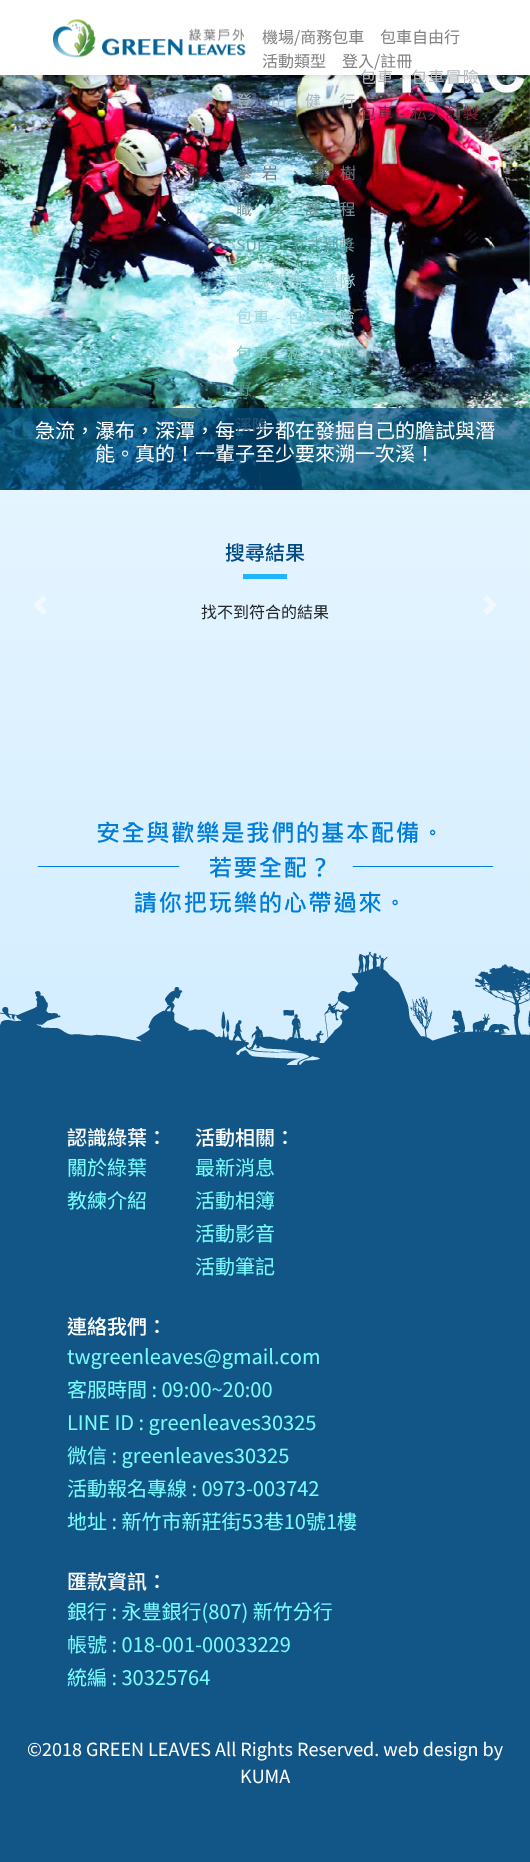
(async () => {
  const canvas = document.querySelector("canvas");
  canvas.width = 530;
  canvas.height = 1862;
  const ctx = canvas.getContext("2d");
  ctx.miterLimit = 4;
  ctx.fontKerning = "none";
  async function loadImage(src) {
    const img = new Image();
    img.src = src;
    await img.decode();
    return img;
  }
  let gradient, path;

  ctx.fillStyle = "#ffffff";
  ctx.fillRect(0, 0, 530, 1862);
  gradient = ctx.createLinearGradient(265, -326, 265, 1862);
  gradient.addColorStop(0, "#ffffff");
  gradient.addColorStop(0.99, "#bae3ff");
  ctx.fillStyle = gradient;
  ctx.fillRect(0, 75, 530, 990);
  ctx.drawImage(await loadImage("img/2.png"), 0, 75, 530, 415);
  ctx.fillStyle = "rgba(0, 0, 0, 0.1)";
  ctx.filter = "blur(2px)";
  ctx.beginPath();
  ctx.rect(1, 3, 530, 75);
  ctx.fill();
  ctx.filter = "none";
  ctx.fillStyle = "#ffffff";
  ctx.fillRect(0, 0, 530, 75);
  ctx.drawImage(await loadImage("img/1.png"), 53, 19, 193, 39);
  ctx.fillStyle = "rgba(0, 75, 130, 0.7)";
  ctx.fillRect(0, 408, 530, 82);
  ctx.fillStyle = "#f0f9ff";
  path = new Path2D("M43 595L33 605L43 615L47 611L40.5 605L47 599Z");
  ctx.fill(path);
  path = new Path2D("M487 595L483 599L489.5 605L483 611L487 615L497 605Z");
  ctx.fill(path);
  ctx.fillStyle = "#1fb6ff";
  ctx.fillRect(243, 574, 44, 5);
  ctx.drawImage(await loadImage("img/3.png"), 37, 821, 456, 92);
  ctx.drawImage(await loadImage("img/4.png"), 0, 951, 530, 114);
  ctx.fillStyle = "#125687";
  ctx.fillRect(0, 1065, 530, 797);
  ctx.font = "16px Noto Sans CJK TC";
  ctx.fillStyle = "#818181";
  ctx.fillText("機場/商務包車", 262, 43);
  ctx.fillText("包車自由行", 380, 43);
  ctx.letterSpacing = "1.25px";
  ctx.fillStyle = "#b5b9bd";
  ctx.fillText("包車 - 包車冒險", 360, 83);
  ctx.fillStyle = "#7f2140";
  ctx.fillText("包車 - 私人訂製", 360, 119);
  ctx.letterSpacing = "0px";
  ctx.fillStyle = "#818181";
  ctx.fillText("活動類型", 262, 67);
  ctx.letterSpacing = "18.5px";
  ctx.fillStyle = "#a5b5be";
  ctx.fillText("登山健行", 236, 107);
  ctx.letterSpacing = "10px";
  ctx.fillStyle = "#71777e";
  ctx.fillText("攀岩、攀樹", 236, 179);
  ctx.letterSpacing = "18.5px";
  ctx.fillStyle = "#70959a";
  ctx.fillText("職人課程", 236, 215);
  ctx.letterSpacing = "0px";
  ctx.wordSpacing = "20px";
  ctx.fillStyle = "#67a7aa";
  ctx.fillText("SUP 立式划槳", 236, 251);
  ctx.letterSpacing = "1.25px";
  ctx.wordSpacing = "0px";
  ctx.fillStyle = "#98d1d8";
  ctx.fillText("團隊教育、營隊", 236, 287);
  ctx.fillStyle = "#a2d7df";
  ctx.fillText("包車 - 包車冒險", 236, 323);
  ctx.fillStyle = "#7bc4c1";
  ctx.fillText("包車 - 私人訂製", 236, 359);
  ctx.letterSpacing = "18.5px";
  ctx.fillStyle = "#529a90";
  ctx.fillText("野溪溫泉", 236, 395);
  ctx.letterSpacing = "0px";
  ctx.fillStyle = "#818181";
  ctx.fillText("登入/註冊", 342, 67);
  ctx.font = "20px Noto Sans CJK TC";
  ctx.fillStyle = "#ffffff";
  ctx.fillText("急流，瀑布，深潭，每一步都在發掘自己的膽試與潛", 35, 438);
  ctx.font = "16px Noto Sans CJK TC";
  ctx.fillStyle = "#2b5b7b";
  ctx.fillText("溪降", 236, 431);
  ctx.font = "20px Noto Sans CJK TC";
  ctx.fillStyle = "#ffffff";
  ctx.fillText("能。真的！一輩子至少要來溯一次溪！", 95, 461);
  ctx.font = "500 20px Noto Sans CJK TC";
  ctx.fillStyle = "#004b82";
  ctx.fillText("搜尋結果", 225, 560);
  ctx.font = "16px Noto Sans CJK TC";
  ctx.fillStyle = "#212529";
  ctx.fillText("找不到符合的結果", 201, 618);
  ctx.font = "500 20px Noto Sans CJK TC";
  ctx.fillStyle = "#ffffff";
  ctx.fillText("認識綠葉：", 67, 1145);
  ctx.font = "20px Noto Sans CJK TC";
  ctx.fillStyle = "#78fdff";
  ctx.fillText("關於綠葉", 67, 1175);
  ctx.fillText("教練介紹", 67, 1208);
  ctx.font = "500 20px Noto Sans CJK TC";
  ctx.fillStyle = "#ffffff";
  ctx.fillText("活動相關：", 195, 1145);
  ctx.font = "20px Noto Sans CJK TC";
  ctx.fillStyle = "#78fdff";
  for (const [text, x, y] of [
    ["最新消息", 195, 1175],
    ["活動相簿", 195, 1208],
    ["活動影音", 195, 1241],
    ["活動筆記", 195, 1274],
  ]) {
    ctx.fillText(text, x, y);
  }
  ctx.font = "500 20px Noto Sans CJK TC";
  ctx.fillStyle = "#ffffff";
  ctx.fillText("連絡我們：", 67, 1334);
  ctx.font = "20px Noto Sans CJK TC";
  ctx.fillStyle = "#78fdff";
  for (const [text, x, y] of [
    ["twgreenleaves@gmail.com", 67, 1364],
    ["客服時間 : 09:00~20:00", 67, 1397],
    ["LINE ID : greenleaves30325", 67, 1430],
    ["微信 : greenleaves30325", 67, 1463],
    ["活動報名專線 : 0973-003742", 67, 1496],
    ["地址 : 新竹市新莊街53巷10號1樓", 67, 1529],
  ]) {
    ctx.fillText(text, x, y);
  }
  ctx.font = "500 20px Noto Sans CJK TC";
  ctx.fillStyle = "#ffffff";
  ctx.fillText("匯款資訊：", 67, 1589);
  ctx.font = "20px Noto Sans CJK TC";
  ctx.fillStyle = "#78fdff";
  for (const [text, x, y] of [
    ["銀行 : 永豊銀行(807) 新竹分行", 67, 1619],
    ["帳號 : 018-001-00033229", 67, 1652],
    ["統編 : 30325764", 67, 1685],
  ]) {
    ctx.fillText(text, x, y);
  }
  ctx.font = "18px Noto Sans CJK TC";
  ctx.fillStyle = "#ffffff";
  ctx.fillText("©2018 GREEN LEAVES All Rights Reserved. web design by", 27, 1756);
  ctx.fillText("KUMA", 240, 1783);
})();
